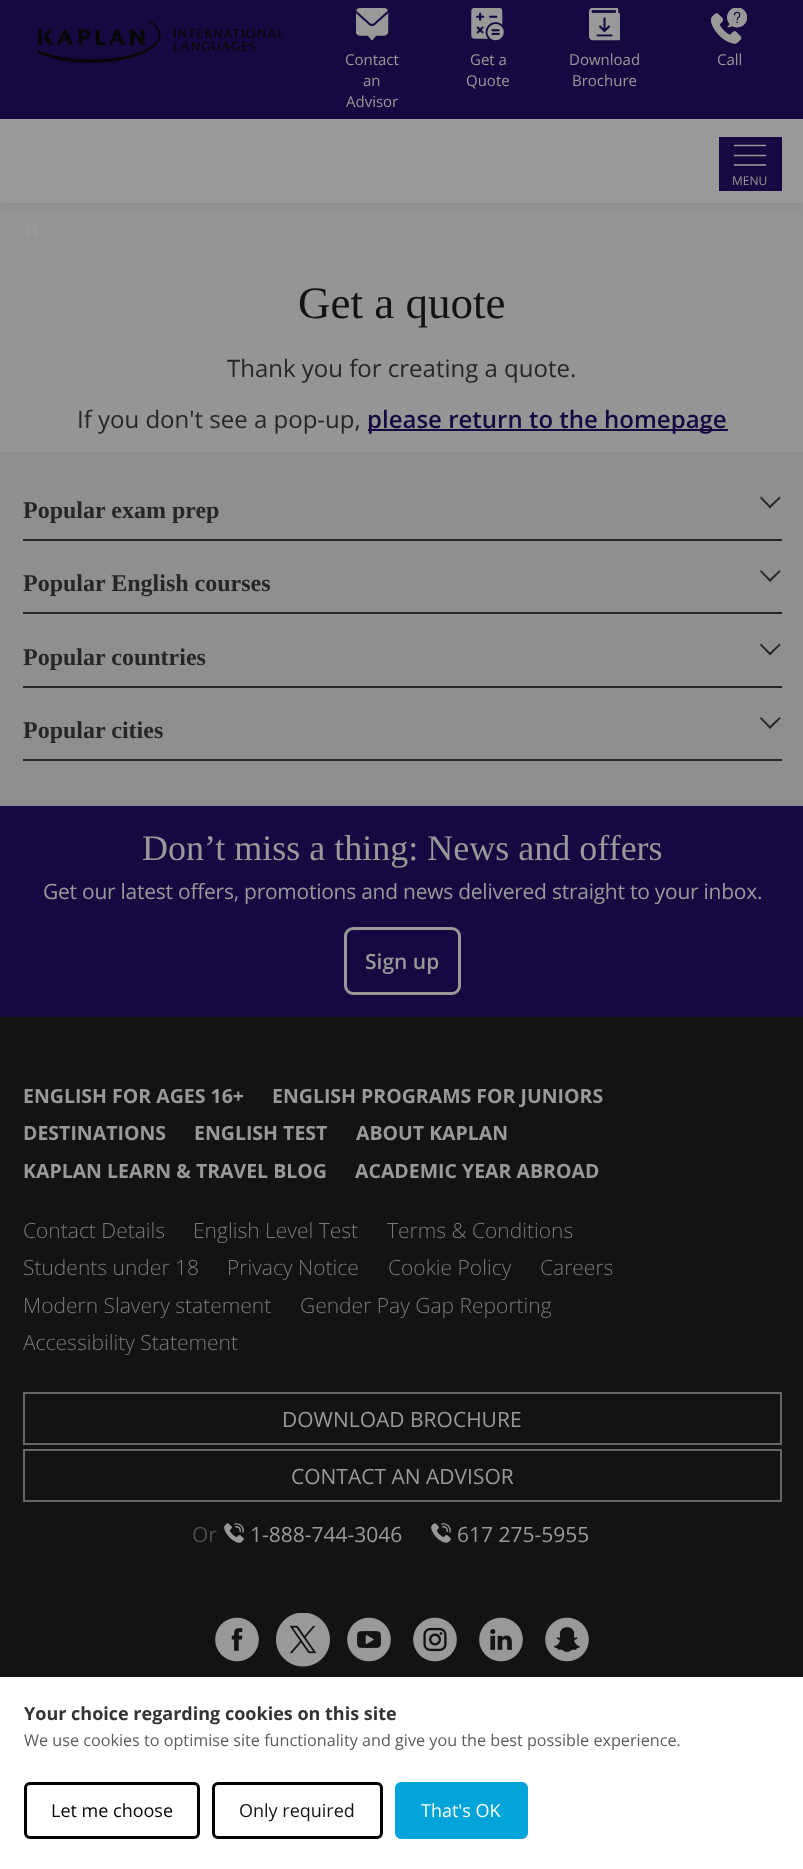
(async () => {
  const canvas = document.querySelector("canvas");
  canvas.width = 803;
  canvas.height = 1869;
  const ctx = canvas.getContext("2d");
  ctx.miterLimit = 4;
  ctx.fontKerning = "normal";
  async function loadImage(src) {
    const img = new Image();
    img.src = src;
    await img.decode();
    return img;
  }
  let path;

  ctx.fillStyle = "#959595";
  ctx.fillRect(0, 0, 803, 1869);
  ctx.fillStyle = "#160942";
  ctx.fillRect(0, 0, 803, 119);
  ctx.drawImage(await loadImage("img/1.png"), 38, 21, 246, 42);
  ctx.drawImage(await loadImage("img/2.png"), 356, 8, 33, 33);
  ctx.drawImage(await loadImage("img/3.png"), 471, 8, 33, 33);
  ctx.drawImage(await loadImage("img/4.png"), 589, 8, 31, 33);
  ctx.drawImage(await loadImage("img/5.png"), 711, 8, 36, 36);
  ctx.drawImage(await loadImage("img/6.png"), 711, 8, 36, 36);
  ctx.drawImage(await loadImage("img/7.png"), 24, 220, 15, 16);
  ctx.fillStyle = "rgba(0, 0, 0, 0.08)";
  ctx.filter = "blur(6px)";
  ctx.beginPath();
  ctx.rect(0, 120, 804, 84);
  ctx.fill();
  ctx.filter = "none";
  ctx.fillStyle = "#999999";
  ctx.fillRect(0, 119, 803, 84);
  ctx.fillStyle = "#160942";
  ctx.fillRect(719, 137, 63, 54);
  path = new Path2D("M734 145.5H766M734 155.5H766");
  ctx.strokeStyle = "#999999";
  ctx.lineWidth = 1.6;
  ctx.stroke(path);
  for (const [x, y, w, h, color] of [
    [734, 164, 32, 2, "#7f7c88"],
    [368, 429, 360, 2, "#160942"],
    [0, 452, 803, 354, "#8f8f8f"],
    [23, 539, 759, 2, "#262626"],
  ]) {
    ctx.fillStyle = color;
    ctx.fillRect(x, y, w, h);
  }
  path = new Path2D("M779.5 496.5L780.5 498L770 508.5L760 498L761 496.5L770 505.5Z");
  ctx.fill(path);
  ctx.fillRect(23, 612, 759, 2);
  path = new Path2D("M779.5 570L780.5 571.5L770 582L760 571.5L761 570L770 579Z");
  ctx.fill(path);
  ctx.fillRect(23, 686, 759, 2);
  path = new Path2D("M779.5 643.5L780.5 645L770 655.5L760 645L761 643.5L770 652.5Z");
  ctx.fill(path);
  ctx.fillRect(23, 759, 759, 2);
  path = new Path2D("M779.5 717L780.5 718.5L770 729L760 718.5L761 717L770 726Z");
  ctx.fill(path);
  ctx.fillStyle = "#160942";
  ctx.fillRect(0, 806, 803, 211);
  ctx.beginPath();
  ctx.roundRect(345.5, 928.5, 114, 65, 7.5);
  ctx.lineWidth = 3;
  ctx.stroke();
  ctx.fillStyle = "#131313";
  ctx.fillRect(0, 1017, 803, 660);
  ctx.strokeStyle = "#666666";
  ctx.lineWidth = 2;
  ctx.strokeRect(24, 1393, 757, 51);
  ctx.strokeRect(24, 1450, 757, 51);
  ctx.drawImage(await loadImage("img/8.png"), 224, 1523, 20, 20);
  ctx.drawImage(await loadImage("img/8.png"), 431, 1523, 20, 20);
  ctx.drawImage(await loadImage("img/9.png"), 215, 1617, 44, 45);
  ctx.drawImage(await loadImage("img/10.png"), 276, 1613, 54, 54);
  ctx.drawImage(await loadImage("img/11.png"), 347, 1617, 44, 45);
  ctx.drawImage(await loadImage("img/12.png"), 413, 1617, 44, 45);
  ctx.drawImage(await loadImage("img/13.png"), 479, 1617, 44, 45);
  ctx.drawImage(await loadImage("img/14.png"), 545, 1617, 44, 45);
  ctx.fillStyle = "#ffffff";
  ctx.fillRect(0, 1677, 803, 192);
  ctx.beginPath();
  ctx.roundRect(25.5, 1783.5, 173, 54, 4.5);
  ctx.strokeStyle = "#000000";
  ctx.lineWidth = 3;
  ctx.stroke();
  ctx.beginPath();
  ctx.roundRect(213.5, 1783.5, 168, 54, 4.5);
  ctx.stroke();
  ctx.fillStyle = "#00a4d9";
  ctx.beginPath();
  ctx.roundRect(396.5, 1783.5, 130, 54, 4.5);
  ctx.fill();
  ctx.strokeStyle = "#00a4d9";
  ctx.stroke();
  ctx.font = "15px Open Sans";
  ctx.fillStyle = "#999999";
  for (const [text, x, y] of [
    ["Contact", 345, 65],
    ["an", 363, 86],
    ["Advisor", 346, 107],
    ["Get a", 470, 65],
    ["Quote", 466, 86],
    ["Download", 569, 65],
    ["Brochure", 572, 86],
    ["Call", 717, 65],
  ]) {
    ctx.fillText(text, x, y);
  }
  ctx.font = "12px Open Sans";
  ctx.fillText("MENU", 732, 185);
  ctx.font = "45px Liberation Serif";
  ctx.fillStyle = "#131313";
  ctx.fillText("Get a quote", 298, 318);
  ctx.font = "24px Open Sans";
  ctx.fillStyle = "#262626";
  ctx.fillText("Thank you for creating a quote.", 227, 377);
  ctx.fillText("If you don't see a pop-up,", 77, 428);
  ctx.font = "600 24px Open Sans";
  ctx.fillStyle = "#160942";
  ctx.fillText("please return to the homepage", 367, 428);
  ctx.font = "bold 24px Liberation Serif";
  ctx.fillStyle = "#262626";
  for (const [text, x, y] of [
    ["Popular exam prep", 23, 518],
    ["Popular English courses", 23, 591],
    ["Popular countries", 23, 665],
    ["Popular cities", 23, 738],
  ]) {
    ctx.fillText(text, x, y);
  }
  ctx.font = "36px Liberation Serif";
  ctx.fillStyle = "#999999";
  ctx.fillText("Don’t miss a thing: News and offers", 142, 860);
  ctx.letterSpacing = "-0.25px";
  ctx.font = "21px Open Sans";
  ctx.fillText("Get our latest offers, promotions and news delivered straight to your inbox.", 43, 899);
  ctx.letterSpacing = "0px";
  ctx.font = "600 21px Open Sans";
  ctx.fillText("Sign up", 365, 969);
  ctx.font = "bold 19.5px Open Sans";
  for (const [text, x, y] of [
    ["ENGLISH FOR AGES 16+", 23, 1103],
    ["ENGLISH PROGRAMS FOR JUNIORS", 272, 1103],
    ["DESTINATIONS", 23, 1140],
    ["ENGLISH TEST", 194, 1140],
    ["ABOUT KAPLAN", 356, 1140],
    ["KAPLAN LEARN & TRAVEL BLOG", 23, 1178],
    ["ACADEMIC YEAR ABROAD", 355, 1178],
  ]) {
    ctx.fillText(text, x, y);
  }
  ctx.font = "300 21px Open Sans";
  ctx.fillStyle = "#7a7a7a";
  for (const [text, x, y] of [
    ["Contact Details", 23, 1238],
    ["English Level Test", 193, 1238],
    ["Terms & Conditions", 387, 1238],
    ["Students under 18", 23, 1275],
    ["Privacy Notice", 227, 1275],
    ["Cookie Policy", 388, 1275],
    ["Careers", 540, 1275],
    ["Modern Slavery statement", 23, 1313],
    ["Gender Pay Gap Reporting", 300, 1313],
    ["Accessibility Statement", 23, 1350],
  ]) {
    ctx.fillText(text, x, y);
  }
  ctx.font = "21px Open Sans";
  ctx.fillStyle = "#999999";
  ctx.fillText("DOWNLOAD BROCHURE", 282, 1427);
  ctx.fillText("CONTACT AN ADVISOR", 291, 1484);
  ctx.fillStyle = "#4d4d4d";
  ctx.fillText("Or", 192, 1542);
  ctx.fillStyle = "#999999";
  ctx.fillText("1-888-744-3046", 250, 1542);
  ctx.fillText("617 275-5955", 457, 1542);
  ctx.font = "bold 18px Open Sans";
  ctx.fillStyle = "#333333";
  ctx.fillText("Your choice regarding cookies on this site", 24, 1720);
  ctx.font = "16.2px Open Sans";
  ctx.fillStyle = "#5c5c5c";
  ctx.fillText("We use cookies to optimise site functionality and give you the best possible experience.", 24, 1746);
  ctx.font = "18px Open Sans";
  ctx.fillStyle = "#000000";
  ctx.fillText("Let me choose", 51, 1817);
  ctx.fillStyle = "#131313";
  ctx.fillText("Only required", 239, 1817);
  ctx.fillStyle = "#ffffff";
  ctx.fillText("That's OK", 421, 1817);
})();
